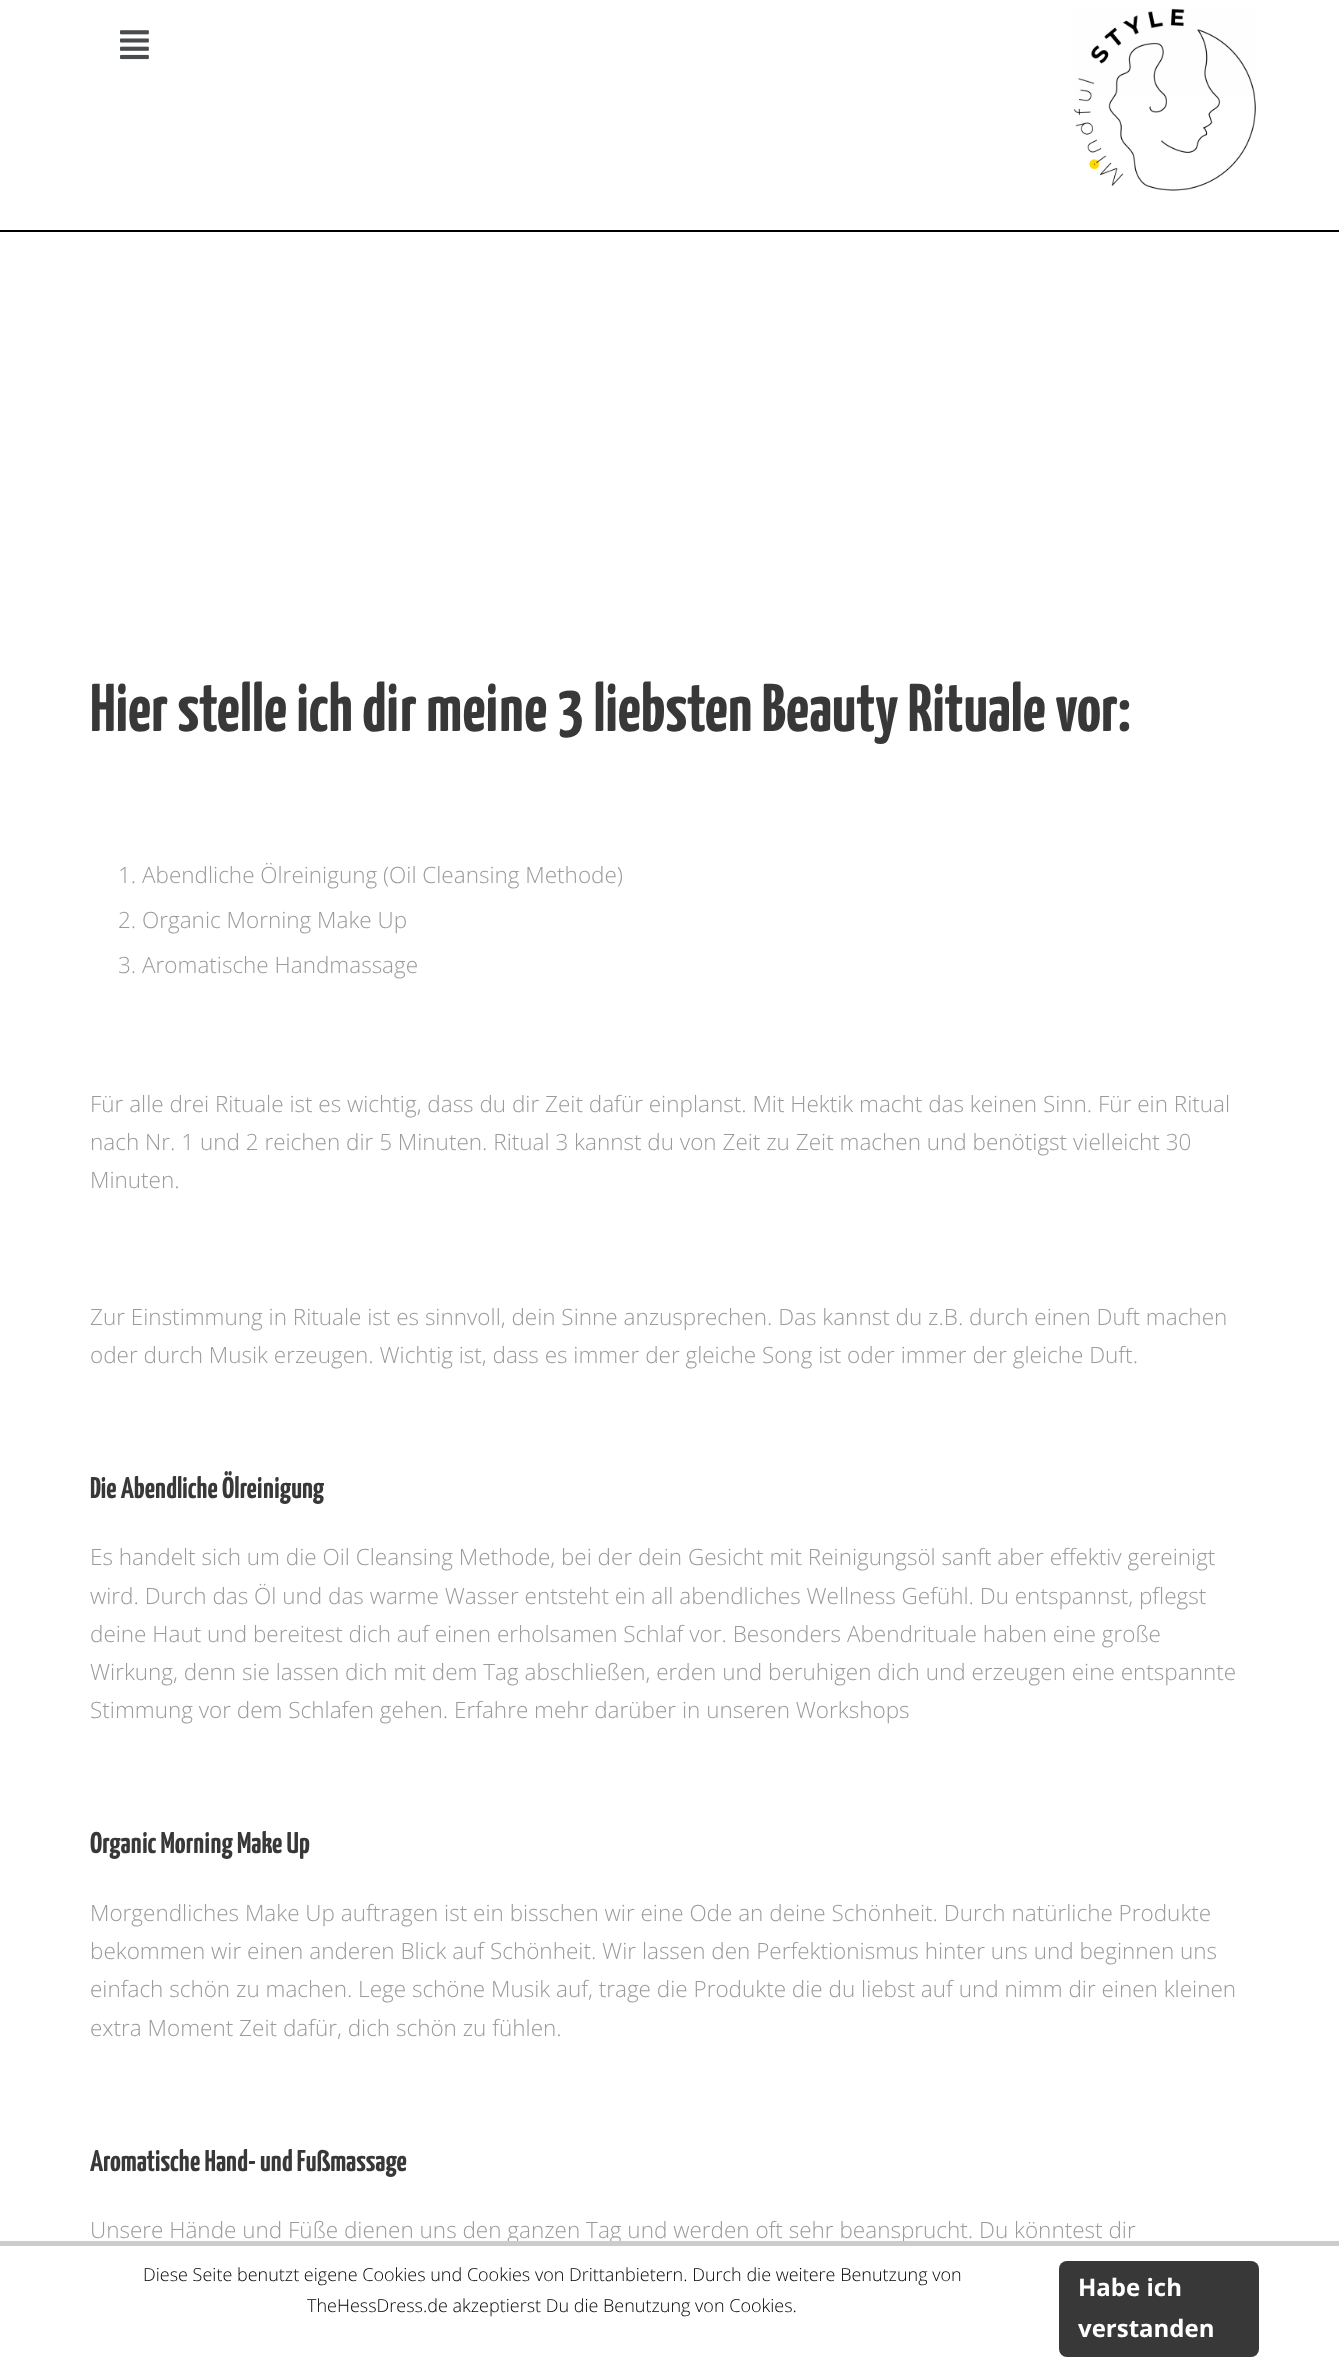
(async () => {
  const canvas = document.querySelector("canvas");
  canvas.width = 1339;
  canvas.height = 2371;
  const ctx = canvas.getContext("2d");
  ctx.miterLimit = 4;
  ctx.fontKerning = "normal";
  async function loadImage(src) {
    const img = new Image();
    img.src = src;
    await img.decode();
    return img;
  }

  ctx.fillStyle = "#ffffff";
  ctx.fillRect(0, 0, 1339, 2371);
  ctx.fillStyle = "#000000";
  ctx.fillRect(0, 230, 1339, 2);
  ctx.drawImage(await loadImage("img/1.png"), 120, 30, 29, 30);
  ctx.drawImage(await loadImage("img/2.png"), 1073, 8, 183, 183);
  ctx.fillStyle = "#383838";
  ctx.beginPath();
  ctx.roundRect(1059, 2261, 200, 96, 8);
  ctx.fill();
  ctx.font = "bold 67.5px Yanone Kaffeesatz";
  ctx.fillText("Hier stelle ich dir meine 3 liebsten Beauty Rituale vor:", 90, 731);
  ctx.font = "300 22.5px Open Sans";
  ctx.fillStyle = "#9b9b9b";
  for (const [text, x, y] of [
    ["1. Abendliche Ölreinigung (Oil Cleansing Methode)", 118, 883],
    ["2. Organic Morning Make Up", 118, 928],
    ["3. Aromatische Handmassage", 118, 973],
    ["Für alle drei Rituale ist es wichtig, dass du dir Zeit dafür einplanst. Mit Hektik macht das keinen Sinn. Für ein Ritual", 90, 1112],
    ["nach Nr. 1 und 2 reichen dir 5 Minuten. Ritual 3 kannst du von Zeit zu Zeit machen und benötigst vielleicht 30", 90, 1150],
    ["Minuten.", 90, 1188],
    ["Zur Einstimmung in Rituale ist es sinnvoll, dein Sinne anzusprechen. Das kannst du z.B. durch einen Duft machen", 90, 1325],
    ["oder durch Musik erzeugen. Wichtig ist, dass es immer der gleiche Song ist oder immer der gleiche Duft.", 90, 1363],
  ]) {
    ctx.fillText(text, x, y);
  }
  ctx.font = "bold 30px Yanone Kaffeesatz";
  ctx.fillStyle = "#383838";
  ctx.fillText("Die Abendliche Ölreinigung", 90, 1498);
  ctx.font = "300 22.5px Open Sans";
  ctx.fillStyle = "#9b9b9b";
  for (const [text, x, y] of [
    ["Es handelt sich um die Oil Cleansing Methode, bei der dein Gesicht mit Reinigungsöl sanft aber effektiv gereinigt", 90, 1565],
    ["wird. Durch das Öl und das warme Wasser entsteht ein all abendliches Wellness Gefühl. Du entspannst, pflegst", 90, 1604],
    ["deine Haut und bereitest dich auf einen erholsamen Schlaf vor. Besonders Abendrituale haben eine große", 90, 1642],
    ["Wirkung, denn sie lassen dich mit dem Tag abschließen, erden und beruhigen dich und erzeugen eine entspannte", 90, 1680],
    ["Stimmung vor dem Schlafen gehen. Erfahre mehr darüber in unseren Workshops", 90, 1718],
  ]) {
    ctx.fillText(text, x, y);
  }
  ctx.font = "bold 30px Yanone Kaffeesatz";
  ctx.fillStyle = "#383838";
  ctx.fillText("Organic Morning Make Up", 90, 1853);
  ctx.font = "300 22.5px Open Sans";
  ctx.fillStyle = "#9b9b9b";
  for (const [text, x, y] of [
    ["Morgendliches Make Up auftragen ist ein bisschen wir eine Ode an deine Schönheit. Durch natürliche Produkte", 90, 1921],
    ["bekommen wir einen anderen Blick auf Schönheit. Wir lassen den Perfektionismus hinter uns und beginnen uns", 90, 1959],
    ["einfach schön zu machen. Lege schöne Musik auf, trage die Produkte die du liebst auf und nimm dir einen kleinen", 90, 1997],
    ["extra Moment Zeit dafür, dich schön zu fühlen.", 90, 2036],
  ]) {
    ctx.fillText(text, x, y);
  }
  ctx.font = "bold 30px Yanone Kaffeesatz";
  ctx.fillStyle = "#383838";
  ctx.fillText("Aromatische Hand- und Fußmassage", 90, 2171);
  ctx.font = "300 22.5px Open Sans";
  ctx.fillStyle = "#9b9b9b";
  ctx.fillText("Unsere Hände und Füße dienen uns den ganzen Tag und werden oft sehr beansprucht. Du könntest dir", 90, 2238);
  ctx.fillStyle = "#cccccc";
  ctx.fillRect(0, 2241, 1339, 5);
  ctx.font = "300 18px Open Sans";
  ctx.fillStyle = "#000000";
  ctx.fillText("Diese Seite benutzt eigene Cookies und Cookies von Drittanbietern. Durch die weitere Benutzung von", 143, 2281);
  ctx.fillText("TheHessDress.de akzeptierst Du die Benutzung von Cookies.", 307, 2312);
  ctx.font = "bold 24px Open Sans";
  ctx.fillStyle = "#ffffff";
  ctx.fillText("Habe ich", 1078, 2296);
  ctx.fillText("verstanden", 1078, 2337);
})();
